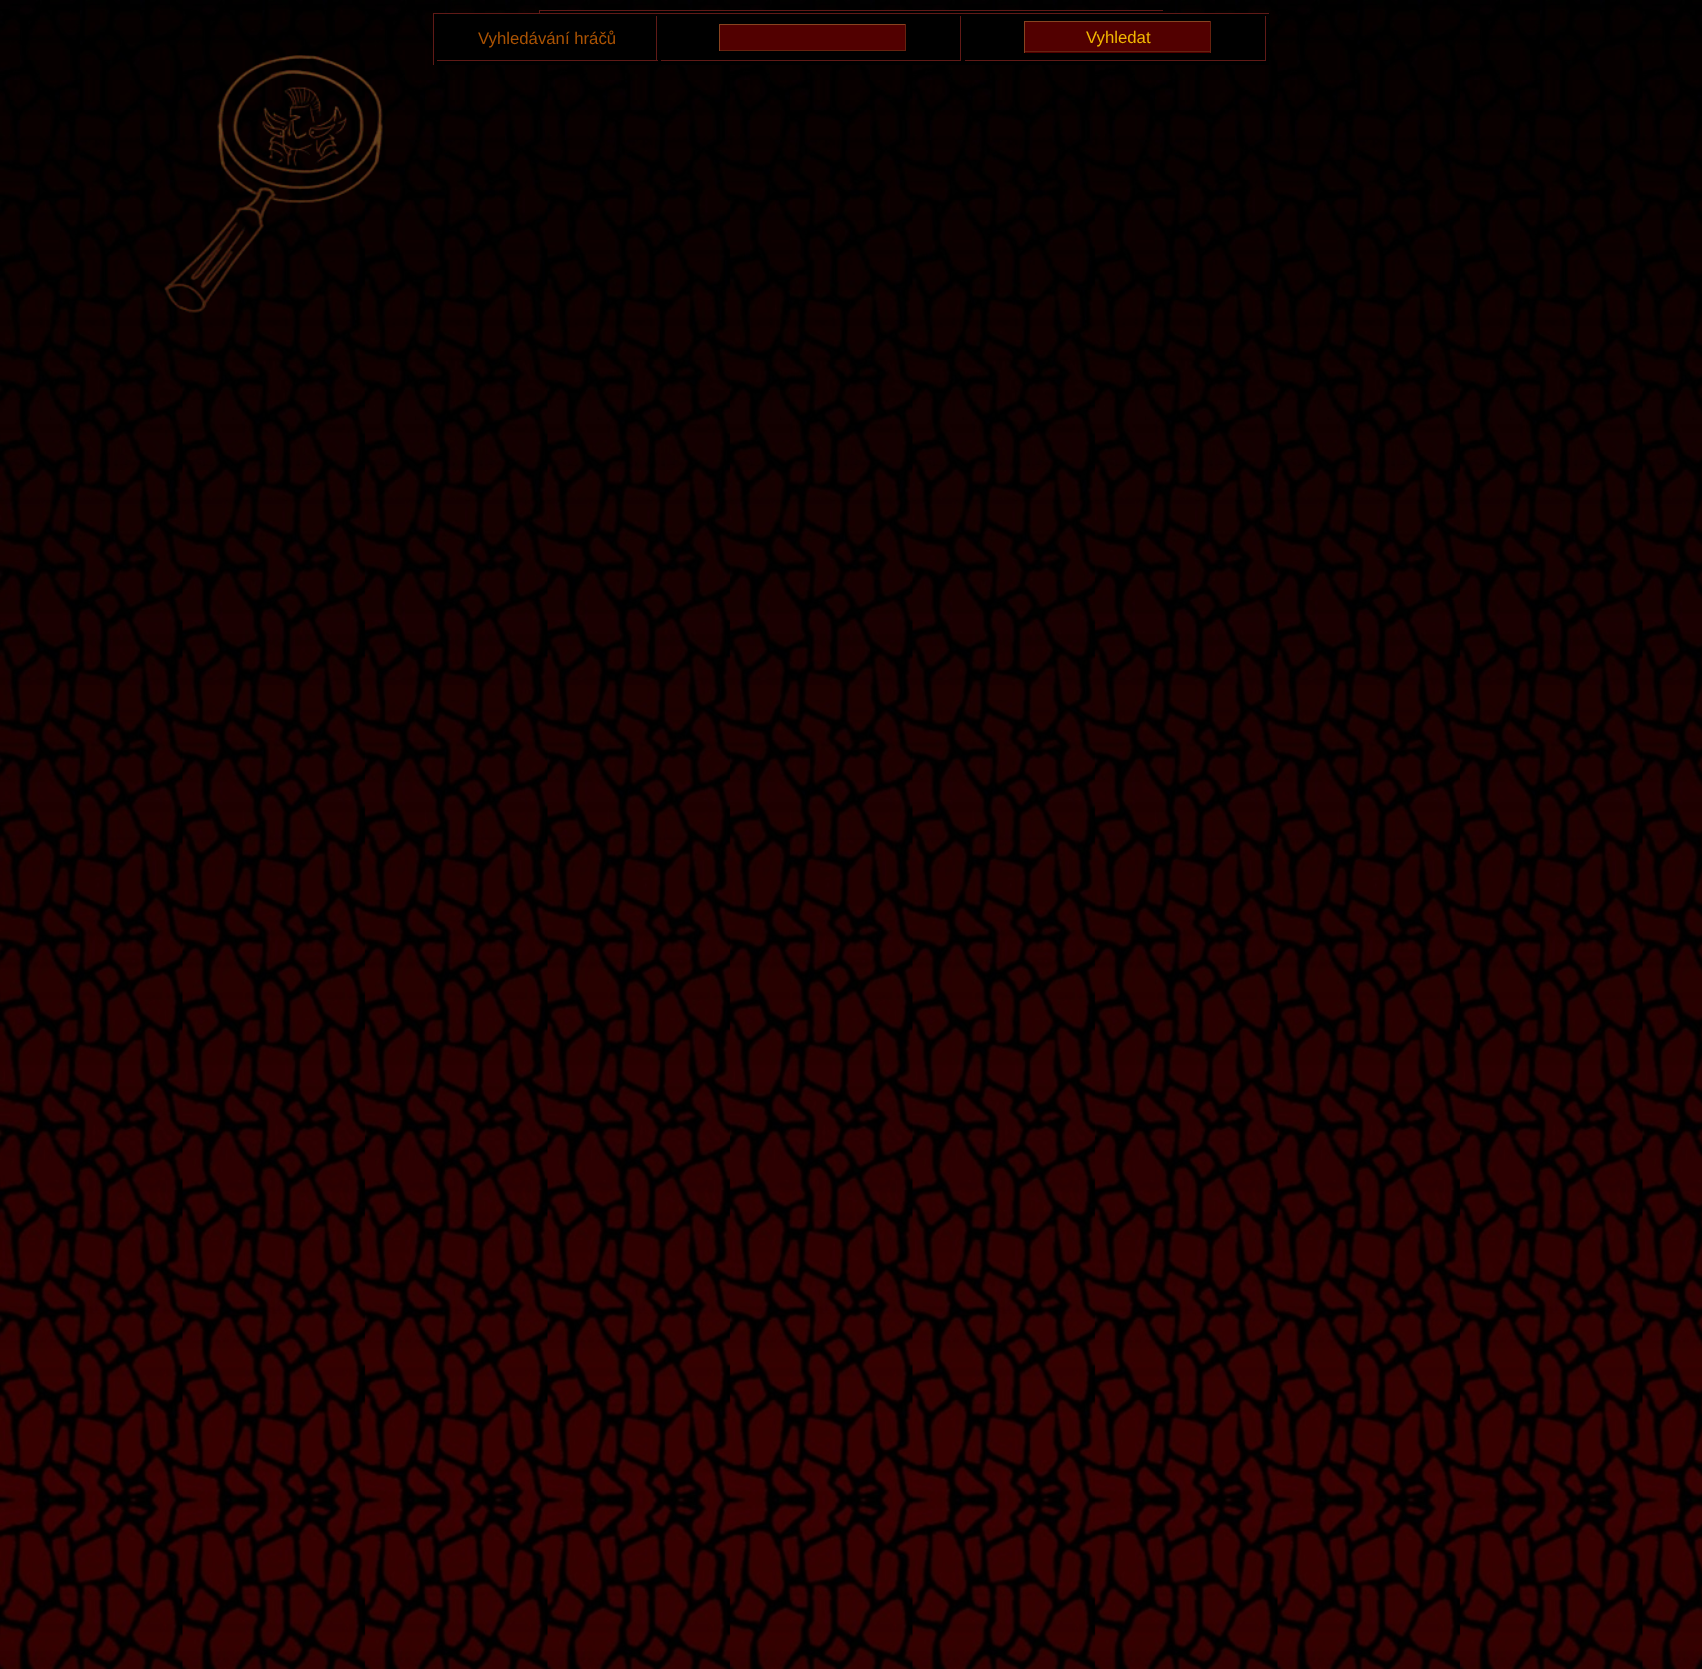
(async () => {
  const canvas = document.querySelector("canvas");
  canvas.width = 1702;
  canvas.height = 1669;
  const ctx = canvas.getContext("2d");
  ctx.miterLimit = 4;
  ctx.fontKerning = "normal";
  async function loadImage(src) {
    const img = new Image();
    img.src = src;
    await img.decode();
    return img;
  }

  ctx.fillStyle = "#ffffff";
  ctx.fillRect(0, 0, 1702, 1669);
  ctx.drawImage(await loadImage("img/1.png"), 0, 0, 1702, 1669);
  for (const [x, y, w, h, color] of [
    [539, 11, 625, 2, "#000000"],
    [539, 10, 625, 1, "#601a17"],
    [1163, 10, 1, 3, "#000000"],
    [539, 10, 1, 3, "#601a17"],
    [434, 14, 835, 51, "#000000"],
    [433, 13, 837, 1, "#601a17"],
    [1269, 13, 1, 16, "#000000"],
    [433, 13, 1, 52, "#601a17"],
    [656, 16, 1, 45, "#601a17"],
    [436, 60, 222, 1, "#601a17"],
    [436, 60, 1, 1, "#000000"],
    [960, 16, 1, 45, "#601a17"],
    [660, 60, 301, 1, "#601a17"],
    [660, 60, 1, 1, "#000000"],
    [720, 25, 185, 25, "#520000"],
    [719, 24, 187, 1, "#884420"],
    [905, 24, 1, 27, "#662210"],
    [719, 50, 187, 1, "#662210"],
    [719, 24, 1, 27, "#884420"],
    [1265, 16, 1, 45, "#601a17"],
    [964, 60, 302, 1, "#601a17"],
    [964, 60, 1, 1, "#000000"],
    [1025, 22, 185, 31, "#520000"],
    [1024, 21, 187, 1, "#884420"],
    [1210, 21, 1, 32, "#662210"],
    [1024, 51, 187, 1, "#662210"],
    [1024, 21, 1, 32, "#884420"],
  ]) {
    ctx.fillStyle = color;
    ctx.fillRect(x, y, w, h);
  }
  ctx.drawImage(await loadImage("img/2.png"), 164, 55, 219, 258);
  ctx.font = "16.75px Liberation Sans";
  ctx.fillStyle = "#ab5303";
  ctx.fillText("Vyhledávání hráčů", 478, 44);
  ctx.fillStyle = "#f3b801";
  ctx.fillText("Vyhledat", 1086, 43);
})();
